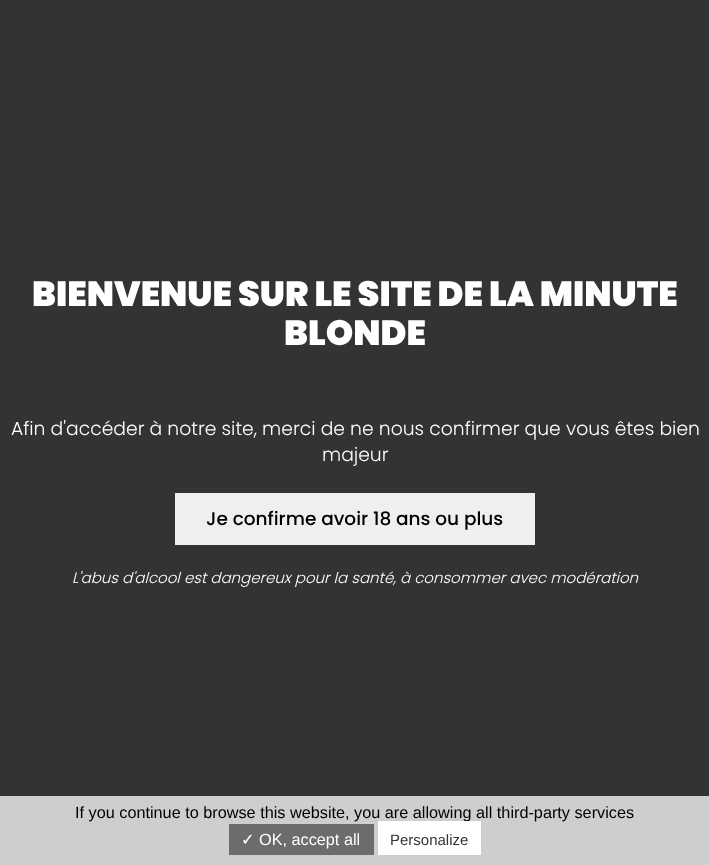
(async () => {
  const canvas = document.querySelector("canvas");
  canvas.width = 709;
  canvas.height = 865;
  const ctx = canvas.getContext("2d");
  ctx.miterLimit = 4;
  ctx.fontKerning = "normal";

  ctx.fillStyle = "#333333";
  ctx.fillRect(0, 0, 709, 865);
  for (const [x, y, w, h, color] of [
    [175, 493, 360, 52, "#efefef"],
    [0, 796, 709, 69, "#cecece"],
    [229, 824, 145, 31, "#6d6c6c"],
  ]) {
    ctx.fillStyle = color;
    ctx.fillRect(x, y, w, h);
  }
  ctx.font = "900 35px Poppins";
  ctx.fillStyle = "#ffffff";
  ctx.fillText("BIENVENUE SUR LE SITE DE LA MINUTE", 32, 306);
  ctx.fillText("BLONDE", 284, 345);
  ctx.font = "300 18.75px Poppins";
  ctx.fillText("Afin d'accéder à notre site, merci de ne nous confirmer que vous êtes bien", 11, 435);
  ctx.fillText("majeur", 322, 461);
  ctx.font = "500 18.5px Poppins";
  ctx.fillStyle = "#000000";
  ctx.fillText("Je confirme avoir 18 ans ou plus", 206, 525);
  ctx.font = "italic 300 15px Poppins";
  ctx.fillStyle = "#ffffff";
  ctx.fillText("L'abus d'alcool est dangereux pour la santé, à consommer avec modération", 72, 583);
  ctx.font = "16.25px Liberation Sans";
  ctx.fillStyle = "#000000";
  ctx.fillText("If you continue to browse this website, you are allowing all third-party services", 75, 818);
  ctx.font = "16.25px DejaVu Sans";
  ctx.fillStyle = "#ffffff";
  ctx.fillText("✓", 241, 845);
  ctx.font = "16.25px Liberation Sans";
  ctx.fillText("OK, accept all", 259, 845);
  ctx.fillRect(378, 821, 103, 34);
  ctx.font = "15px Liberation Sans";
  ctx.fillStyle = "#333333";
  ctx.fillText("Personalize", 390, 845);
})();
